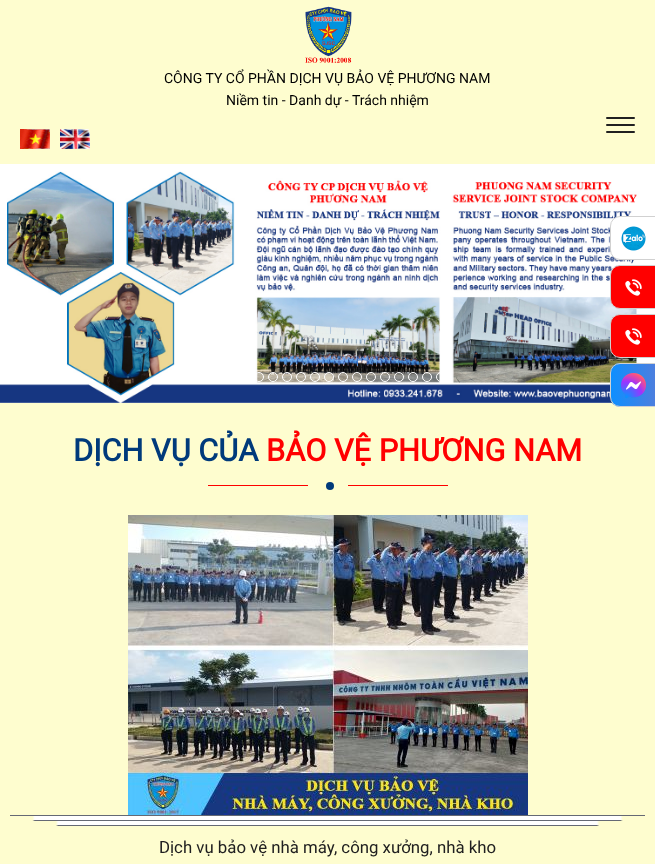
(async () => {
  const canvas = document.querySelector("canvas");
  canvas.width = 655;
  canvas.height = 864;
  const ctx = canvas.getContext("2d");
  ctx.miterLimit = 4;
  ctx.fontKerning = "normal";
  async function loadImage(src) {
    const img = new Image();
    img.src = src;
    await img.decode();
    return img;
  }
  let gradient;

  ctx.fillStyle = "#ffffff";
  ctx.fillRect(0, 0, 655, 864);
  ctx.fillStyle = "#fefdcf";
  ctx.fillRect(0, 0, 655, 164);
  ctx.drawImage(await loadImage("img/1.png"), 305, 6, 47, 57);
  ctx.fillStyle = "#202020";
  ctx.beginPath();
  ctx.roundRect(606, 117, 29, 2, 1);
  ctx.fill();
  ctx.beginPath();
  ctx.roundRect(606, 124, 29, 2, 1);
  ctx.fill();
  ctx.beginPath();
  ctx.roundRect(606, 131, 29, 2, 1);
  ctx.fill();
  ctx.drawImage(await loadImage("img/2.png"), 20, 129, 30, 20);
  ctx.drawImage(await loadImage("img/3.png"), 60, 129, 30, 20);
  ctx.drawImage(await loadImage("img/4.png"), 0, 164, 655, 239);
  ctx.beginPath();
  ctx.arc(259, 377, 4.5, 0, Math.PI * 2);
  ctx.strokeStyle = "#ffffff";
  ctx.stroke();
  ctx.beginPath();
  ctx.arc(273, 377, 4.5, 0, Math.PI * 2);
  ctx.stroke();
  ctx.beginPath();
  ctx.arc(287, 377, 4.5, 0, Math.PI * 2);
  ctx.stroke();
  ctx.beginPath();
  ctx.arc(301, 377, 4.5, 0, Math.PI * 2);
  ctx.stroke();
  ctx.beginPath();
  ctx.arc(315, 377, 4.5, 0, Math.PI * 2);
  ctx.stroke();
  ctx.beginPath();
  ctx.arc(329, 377, 4.5, 0, Math.PI * 2);
  ctx.stroke();
  ctx.beginPath();
  ctx.arc(343, 377, 4.5, 0, Math.PI * 2);
  ctx.stroke();
  ctx.beginPath();
  ctx.arc(357, 377, 4.5, 0, Math.PI * 2);
  ctx.stroke();
  ctx.beginPath();
  ctx.arc(371, 377, 4.5, 0, Math.PI * 2);
  ctx.stroke();
  ctx.beginPath();
  ctx.arc(385, 377, 4.5, 0, Math.PI * 2);
  ctx.stroke();
  ctx.beginPath();
  ctx.arc(399, 377, 4.5, 0, Math.PI * 2);
  ctx.stroke();
  ctx.beginPath();
  ctx.arc(413, 377, 4.5, 0, Math.PI * 2);
  ctx.stroke();
  ctx.beginPath();
  ctx.arc(427, 377, 4.5, 0, Math.PI * 2);
  ctx.stroke();
  ctx.beginPath();
  ctx.arc(441, 377, 4.5, 0, Math.PI * 2);
  ctx.stroke();
  ctx.fillStyle = "#ffffff";
  ctx.beginPath();
  ctx.roundRect(610.5, 216.5, 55, 43, 9.5);
  ctx.fill();
  ctx.strokeStyle = "#d1d1d1";
  ctx.stroke();
  ctx.drawImage(await loadImage("img/5.png"), 621, 226, 25, 25);
  ctx.fillStyle = "#ff0000";
  ctx.beginPath();
  ctx.roundRect(610.5, 265.5, 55, 43, 9.5);
  ctx.fill();
  ctx.stroke();
  ctx.drawImage(await loadImage("img/6.png"), 625, 279, 17, 17);
  ctx.beginPath();
  ctx.roundRect(610.5, 314.5, 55, 43, 9.5);
  ctx.fill();
  ctx.stroke();
  ctx.drawImage(await loadImage("img/6.png"), 625, 328, 17, 17);
  ctx.fillStyle = "#fefdcf";
  ctx.fillRect(0, 403, 655, 461);
  ctx.save();
  ctx.beginPath();
  ctx.roundRect(610, 363, 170, 44, 10);
  ctx.clip();
  gradient = ctx.createLinearGradient(611, 385, 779, 385);
  gradient.addColorStop(0, "#0e8fff");
  gradient.addColorStop(1, "#fb5182");
  ctx.fillStyle = gradient;
  ctx.fillRect(611, 363, 44, 44);
  ctx.restore();
  ctx.beginPath();
  ctx.roundRect(610.5, 363.5, 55, 43, 9.5);
  ctx.stroke();
  ctx.drawImage(await loadImage("img/7.png"), 621, 373, 25, 25);
  ctx.fillStyle = "#003a7b";
  ctx.beginPath();
  ctx.arc(330, 486, 4, 0, Math.PI * 2);
  ctx.fill();
  ctx.fillStyle = "#fd0000";
  ctx.fillRect(208, 485, 100, 1);
  ctx.fillRect(348, 485, 100, 1);
  ctx.drawImage(await loadImage("img/8.png"), 128, 515, 400, 300);
  ctx.drawImage(await loadImage("img/9.png"), 10, 815, 635, 11);
  ctx.font = "14px Roboto";
  ctx.fillStyle = "#000000";
  ctx.fillText("CÔNG TY CỔ PHẦN DỊCH VỤ BẢO VỆ PHƯƠNG NAM", 164, 83);
  ctx.fillText("Niềm tin - Danh dự - Trách nhiệm", 226, 105);
  ctx.font = "bold 30.75px Roboto";
  ctx.fillStyle = "#003a7b";
  ctx.fillText("DỊCH VỤ CỦA", 73, 461);
  ctx.fillStyle = "#ff0000";
  ctx.fillText("BẢO VỆ PHƯƠNG NAM", 266, 461);
  ctx.font = "16.8px Roboto";
  ctx.fillStyle = "#202020";
  ctx.fillText("Dịch vụ bảo vệ nhà máy, công xưởng, nhà kho", 159, 853);
})();
